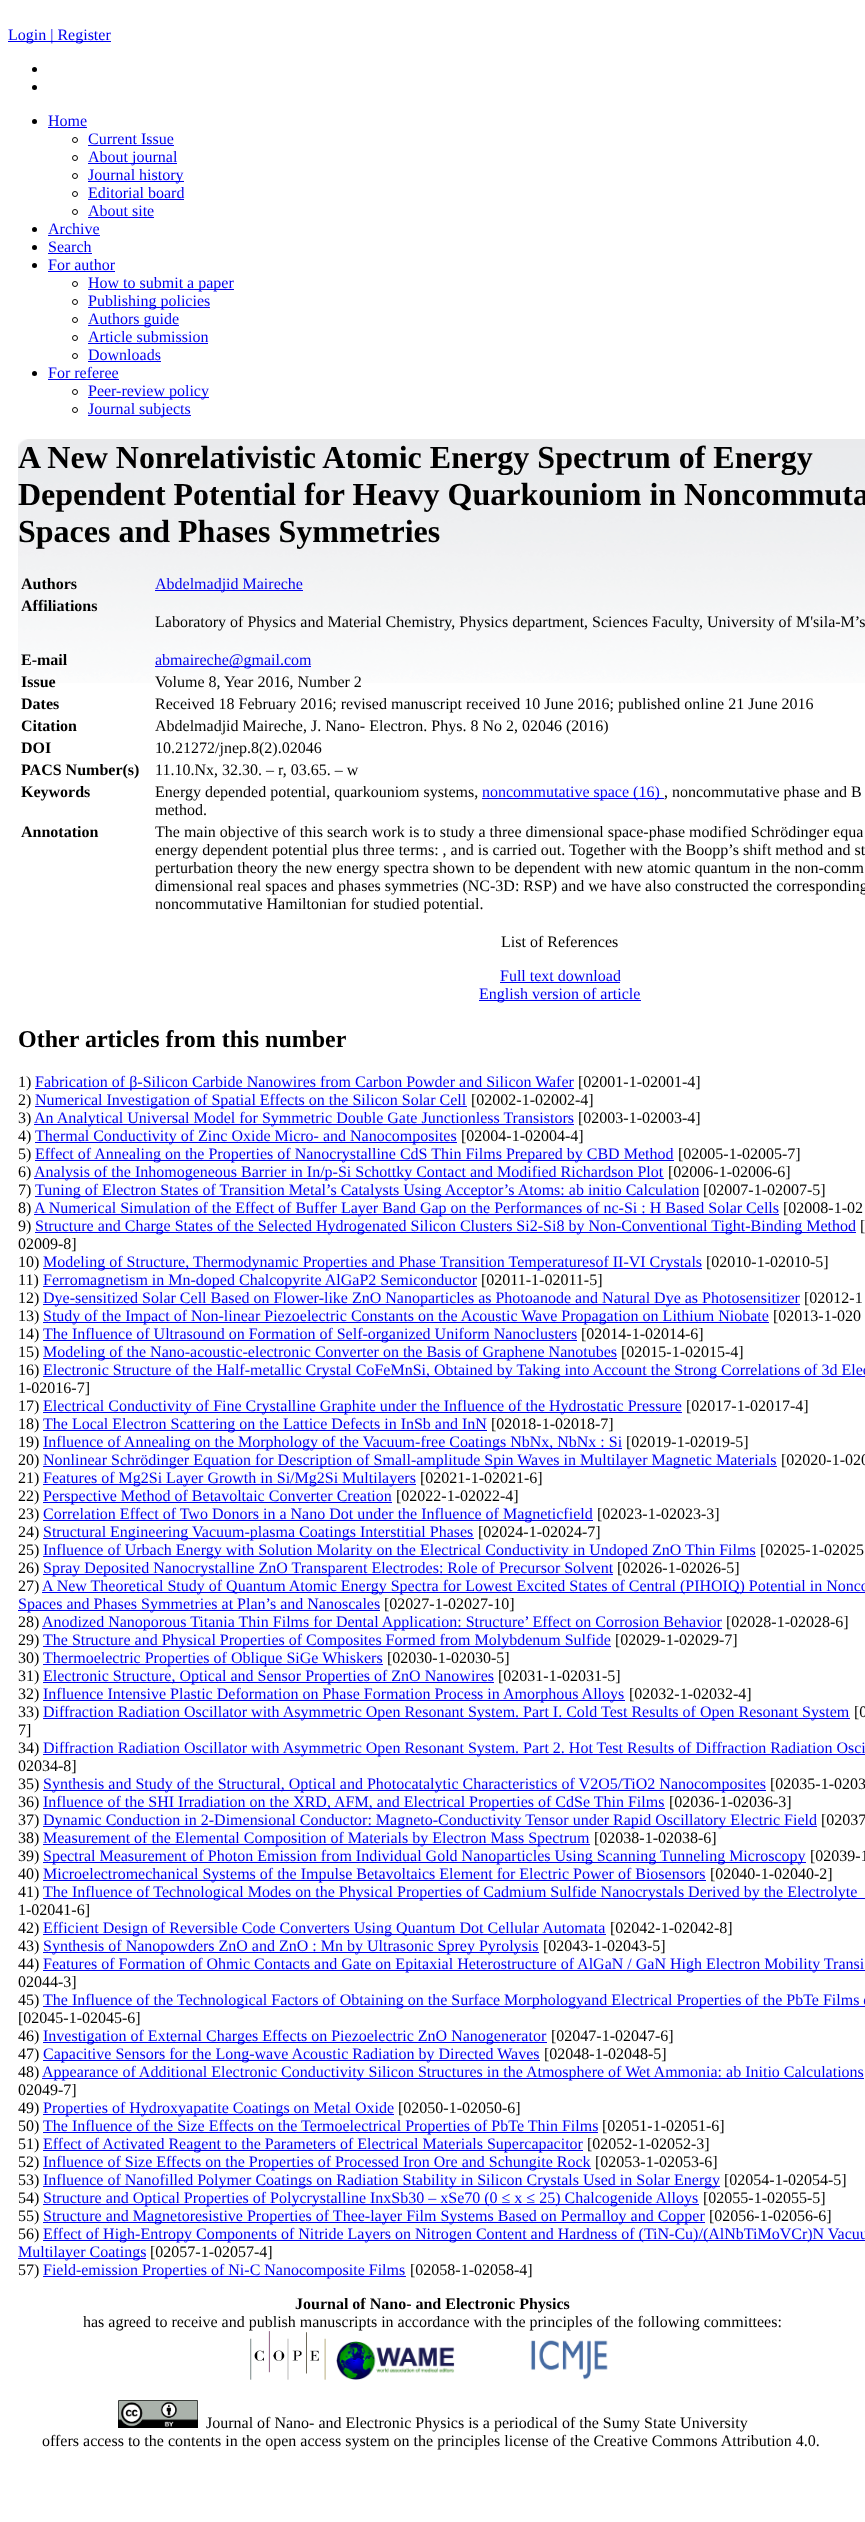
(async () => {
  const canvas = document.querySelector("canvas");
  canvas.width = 865;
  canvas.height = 2522;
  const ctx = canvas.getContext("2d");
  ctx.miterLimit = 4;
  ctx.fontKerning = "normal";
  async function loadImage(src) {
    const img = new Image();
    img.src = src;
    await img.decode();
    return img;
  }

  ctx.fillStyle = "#ffffff";
  ctx.fillRect(0, 0, 865, 2522);
  ctx.fillStyle = "#0000ee";
  ctx.fillRect(8, 41, 103, 1);
  ctx.fillStyle = "#000000";
  ctx.beginPath();
  ctx.arc(34.5, 69.5, 2.5, 0, Math.PI * 2);
  ctx.fill();
  ctx.beginPath();
  ctx.arc(34.5, 87.5, 2.5, 0, Math.PI * 2);
  ctx.fill();
  ctx.beginPath();
  ctx.arc(34.5, 121.5, 2.5, 0, Math.PI * 2);
  ctx.fill();
  ctx.fillStyle = "#0000ee";
  ctx.fillRect(48, 127, 39, 1);
  ctx.beginPath();
  ctx.arc(75, 140, 2.5, 0, Math.PI * 2);
  ctx.strokeStyle = "#000000";
  ctx.stroke();
  ctx.fillRect(88, 145, 86, 1);
  ctx.beginPath();
  ctx.arc(75, 158, 2.5, 0, Math.PI * 2);
  ctx.stroke();
  ctx.fillRect(88, 163, 89, 1);
  ctx.beginPath();
  ctx.arc(75, 176, 2.5, 0, Math.PI * 2);
  ctx.stroke();
  ctx.fillRect(88, 181, 96, 1);
  ctx.beginPath();
  ctx.arc(75, 194, 2.5, 0, Math.PI * 2);
  ctx.stroke();
  ctx.fillRect(88, 199, 96, 1);
  ctx.beginPath();
  ctx.arc(75, 212, 2.5, 0, Math.PI * 2);
  ctx.stroke();
  ctx.fillRect(88, 217, 66, 1);
  ctx.fillStyle = "#000000";
  ctx.beginPath();
  ctx.arc(34.5, 229.5, 2.5, 0, Math.PI * 2);
  ctx.fill();
  ctx.fillStyle = "#0000ee";
  ctx.fillRect(48, 235, 52, 1);
  ctx.fillStyle = "#000000";
  ctx.beginPath();
  ctx.arc(34.5, 247.5, 2.5, 0, Math.PI * 2);
  ctx.fill();
  ctx.fillStyle = "#0000ee";
  ctx.fillRect(48, 253, 44, 1);
  ctx.fillStyle = "#000000";
  ctx.beginPath();
  ctx.arc(34.5, 265.5, 2.5, 0, Math.PI * 2);
  ctx.fill();
  ctx.fillStyle = "#0000ee";
  ctx.fillRect(48, 271, 67, 1);
  ctx.beginPath();
  ctx.arc(75, 284, 2.5, 0, Math.PI * 2);
  ctx.stroke();
  ctx.fillRect(88, 289, 146, 1);
  ctx.beginPath();
  ctx.arc(75, 302, 2.5, 0, Math.PI * 2);
  ctx.stroke();
  ctx.fillRect(88, 307, 122, 1);
  ctx.beginPath();
  ctx.arc(75, 320, 2.5, 0, Math.PI * 2);
  ctx.stroke();
  ctx.fillRect(88, 325, 91, 1);
  ctx.beginPath();
  ctx.arc(75, 338, 2.5, 0, Math.PI * 2);
  ctx.stroke();
  ctx.fillRect(88, 343, 120, 1);
  ctx.beginPath();
  ctx.arc(75, 356, 2.5, 0, Math.PI * 2);
  ctx.stroke();
  ctx.fillRect(88, 361, 73, 1);
  ctx.fillStyle = "#000000";
  ctx.beginPath();
  ctx.arc(34.5, 373.5, 2.5, 0, Math.PI * 2);
  ctx.fill();
  ctx.fillStyle = "#0000ee";
  ctx.fillRect(48, 379, 71, 1);
  ctx.beginPath();
  ctx.arc(75, 392, 2.5, 0, Math.PI * 2);
  ctx.stroke();
  ctx.fillRect(88, 397, 121, 1);
  ctx.beginPath();
  ctx.arc(75, 410, 2.5, 0, Math.PI * 2);
  ctx.stroke();
  ctx.fillRect(88, 415, 103, 1);
  ctx.drawImage(await loadImage("img/1.png"), 18, 439, 847, 244);
  for (const [x, y, w, h, color] of [
    [155, 590, 148, 1, "#0000ee"],
    [155, 666, 156, 1, "#0000ee"],
    [482, 798, 182, 1, "#0000ee"],
    [500, 982, 120, 1, "#0000ee"],
    [479, 1000, 162, 1, "#0000ee"],
    [35, 1088, 539, 1, "#0000ee"],
    [35, 1106, 432, 1, "#0000ee"],
    [34, 1124, 540, 1, "#0000ee"],
    [35, 1142, 422, 1, "#0000ee"],
    [35, 1160, 639, 1, "#0000ee"],
    [34, 1178, 630, 1, "#0000ee"],
    [35, 1196, 664, 1, "#0000ee"],
    [34, 1214, 745, 1, "#0000ee"],
    [35, 1232, 821, 1, "#0000ee"],
    [43, 1268, 659, 1, "#0000ee"],
    [43, 1286, 434, 1, "#0000ee"],
    [43, 1304, 757, 1, "#0000ee"],
    [43, 1322, 726, 1, "#0000ee"],
    [43, 1340, 534, 1, "#0000ee"],
    [43, 1358, 574, 1, "#0000ee"],
    [43, 1376, 822, 1, "#0000ee"],
    [43, 1412, 639, 1, "#0000ee"],
    [43, 1430, 444, 1, "#0000ee"],
    [43, 1448, 579, 1, "#0000ee"],
    [43, 1466, 734, 1, "#0000ee"],
    [43, 1484, 373, 1, "#0000ee"],
    [43, 1502, 349, 1, "#0000ee"],
    [43, 1520, 550, 1, "#0000ee"],
    [43, 1538, 431, 1, "#0000ee"],
    [43, 1556, 713, 1, "#0000ee"],
    [43, 1574, 570, 1, "#0000ee"],
    [42, 1592, 823, 1, "#0000ee"],
    [18, 1610, 362, 1, "#0000ee"],
    [42, 1628, 680, 1, "#0000ee"],
    [43, 1646, 568, 1, "#0000ee"],
    [43, 1664, 340, 1, "#0000ee"],
    [43, 1682, 451, 1, "#0000ee"],
    [43, 1700, 582, 1, "#0000ee"],
    [43, 1718, 807, 1, "#0000ee"],
    [43, 1754, 822, 1, "#0000ee"],
    [43, 1790, 723, 1, "#0000ee"],
    [43, 1808, 622, 1, "#0000ee"],
    [43, 1826, 774, 1, "#0000ee"],
    [43, 1844, 547, 1, "#0000ee"],
    [43, 1862, 763, 1, "#0000ee"],
    [43, 1880, 663, 1, "#0000ee"],
    [43, 1898, 822, 1, "#0000ee"],
    [43, 1934, 563, 1, "#0000ee"],
    [43, 1952, 496, 1, "#0000ee"],
    [43, 1970, 822, 1, "#0000ee"],
    [43, 2006, 822, 1, "#0000ee"],
    [43, 2042, 504, 1, "#0000ee"],
    [43, 2060, 497, 1, "#0000ee"],
    [42, 2078, 822, 1, "#0000ee"],
    [43, 2114, 351, 1, "#0000ee"],
    [43, 2132, 555, 1, "#0000ee"],
    [43, 2150, 540, 1, "#0000ee"],
    [43, 2168, 548, 1, "#0000ee"],
    [43, 2186, 677, 1, "#0000ee"],
    [43, 2204, 656, 1, "#0000ee"],
    [43, 2222, 662, 1, "#0000ee"],
    [43, 2240, 822, 1, "#0000ee"],
    [18, 2258, 128, 1, "#0000ee"],
    [43, 2276, 363, 1, "#0000ee"],
  ]) {
    ctx.fillStyle = color;
    ctx.fillRect(x, y, w, h);
  }
  ctx.drawImage(await loadImage("img/2.png"), 250, 2331, 76, 49);
  ctx.drawImage(await loadImage("img/3.png"), 336, 2341, 119, 39);
  ctx.drawImage(await loadImage("img/4.png"), 530, 2340, 78, 40);
  ctx.drawImage(await loadImage("img/5.png"), 118, 2400, 80, 28);
  ctx.font = "16px Liberation Serif";
  for (const [text, x, y] of [
    ["Login | Register", 8, 40],
    ["Home", 48, 126],
    ["Current Issue", 88, 144],
    ["About journal", 88, 162],
    ["Journal history", 88, 180],
    ["Editorial board", 88, 198],
    ["About site", 88, 216],
    ["Archive", 48, 234],
    ["Search", 48, 252],
    ["For author", 48, 270],
    ["How to submit a paper", 88, 288],
    ["Publishing policies", 88, 306],
    ["Authors guide", 88, 324],
    ["Article submission", 88, 342],
    ["Downloads", 88, 360],
    ["For referee", 48, 378],
    ["Peer-review policy", 88, 396],
    ["Journal subjects", 88, 414],
  ]) {
    ctx.fillText(text, x, y);
  }
  ctx.font = "bold 32px Liberation Serif";
  ctx.fillStyle = "#000000";
  for (const [text, x, y] of [
    ["A New Nonrelativistic Atomic Energy Spectrum of Energy", 18, 468],
    ["Dependent Potential for Heavy Quarkouniom in Noncommuta", 18, 505],
    ["Spaces and Phases Symmetries", 18, 542],
  ]) {
    ctx.fillText(text, x, y);
  }
  ctx.font = "bold 16px Liberation Serif";
  ctx.fillText("Authors", 21, 589);
  ctx.font = "16px Liberation Serif";
  ctx.fillStyle = "#0000ee";
  ctx.fillText("Abdelmadjid Maireche", 155, 589);
  ctx.font = "bold 16px Liberation Serif";
  ctx.fillStyle = "#000000";
  ctx.fillText("Affiliations", 21, 611);
  ctx.font = "16px Liberation Serif";
  ctx.fillText("Laboratory of Physics and Material Chemistry, Physics department, Sciences Faculty, University of M'sila-M’s", 155, 627);
  ctx.font = "bold 16px Liberation Serif";
  ctx.fillText("Е-mail", 21, 665);
  ctx.font = "16px Liberation Serif";
  ctx.fillStyle = "#0000ee";
  ctx.fillText("abmaireche@gmail.com", 155, 665);
  ctx.font = "bold 16px Liberation Serif";
  ctx.fillStyle = "#000000";
  ctx.fillText("Issue", 21, 687);
  ctx.font = "16px Liberation Serif";
  ctx.fillText("Volume 8, Year 2016, Number 2", 155, 687);
  ctx.font = "bold 16px Liberation Serif";
  ctx.fillText("Dates", 21, 709);
  ctx.font = "16px Liberation Serif";
  ctx.fillText("Received 18 February 2016; revised manuscript received 10 June 2016; published online 21 June 2016", 155, 709);
  ctx.font = "bold 16px Liberation Serif";
  ctx.fillText("Citation", 21, 731);
  ctx.font = "16px Liberation Serif";
  ctx.fillText("Abdelmadjid Maireche, J. Nano- Electron. Phys. 8 No 2, 02046 (2016)", 155, 731);
  ctx.font = "bold 16px Liberation Serif";
  ctx.fillText("DOI", 21, 753);
  ctx.font = "16px Liberation Serif";
  ctx.fillText("10.21272/jnep.8(2).02046", 155, 753);
  ctx.font = "bold 16px Liberation Serif";
  ctx.fillText("PACS Number(s)", 21, 775);
  ctx.font = "16px Liberation Serif";
  ctx.fillText("11.10.Nx, 32.30. – r, 03.65. – w", 155, 775);
  ctx.font = "bold 16px Liberation Serif";
  ctx.fillText("Keywords", 21, 797);
  ctx.font = "16px Liberation Serif";
  ctx.fillText("Energy depended potential, quarkouniom systems,", 155, 797);
  ctx.fillStyle = "#0000ee";
  ctx.fillText("noncommutative space (16)", 482, 797);
  ctx.fillStyle = "#000000";
  ctx.fillText(", noncommutative phase and B", 664, 797);
  ctx.fillText("method.", 155, 815);
  ctx.font = "bold 16px Liberation Serif";
  ctx.fillText("Annotation", 21, 837);
  ctx.font = "16px Liberation Serif";
  for (const [text, x, y] of [
    ["The main objective of this search work is to study a three dimensional space-phase modified Schrödinger equa", 155, 837],
    ["energy dependent potential plus three terms: , and is carried out. Together with the Boopp’s shift method and st", 155, 855],
    ["perturbation theory the new energy spectra shown to be dependent with new atomic quantum in the non-comm", 155, 873],
    ["dimensional real spaces and phases symmetries (NC-3D: RSP) and we have also constructed the corresponding", 155, 891],
    ["noncommutative Hamiltonian for studied potential.", 155, 909],
    ["List of References", 501, 947],
  ]) {
    ctx.fillText(text, x, y);
  }
  ctx.fillStyle = "#0000ee";
  ctx.fillText("Full text download", 500, 981);
  ctx.fillText("English version of article", 479, 999);
  ctx.font = "bold 24px Liberation Serif";
  ctx.fillStyle = "#000000";
  ctx.fillText("Other articles from this number", 18, 1047);
  ctx.font = "16px Liberation Serif";
  ctx.fillText("1)", 18, 1087);
  ctx.fillStyle = "#0000ee";
  ctx.fillText("Fabrication of β-Silicon Carbide Nanowires from Carbon Powder and Silicon Wafer", 35, 1087);
  ctx.fillStyle = "#000000";
  ctx.fillText("[02001-1-02001-4]", 578, 1087);
  ctx.fillText("2)", 18, 1105);
  ctx.fillStyle = "#0000ee";
  ctx.fillText("Numerical Investigation of Spatial Effects on the Silicon Solar Cell", 35, 1105);
  ctx.fillStyle = "#000000";
  ctx.fillText("[02002-1-02002-4]", 471, 1105);
  ctx.fillText("3)", 18, 1123);
  ctx.fillStyle = "#0000ee";
  ctx.fillText("An Analytical Universal Model for Symmetric Double Gate Junctionless Transistors", 34, 1123);
  ctx.fillStyle = "#000000";
  ctx.fillText("[02003-1-02003-4]", 578, 1123);
  ctx.fillText("4)", 18, 1141);
  ctx.fillStyle = "#0000ee";
  ctx.fillText("Thermal Conductivity of Zinc Oxide Micro- and Nanocomposites", 35, 1141);
  ctx.fillStyle = "#000000";
  ctx.fillText("[02004-1-02004-4]", 461, 1141);
  ctx.fillText("5)", 18, 1159);
  ctx.fillStyle = "#0000ee";
  ctx.fillText("Effect of Annealing on the Properties of Nanocrystalline CdS Thin Films Prepared by CBD Method", 35, 1159);
  ctx.fillStyle = "#000000";
  ctx.fillText("[02005-1-02005-7]", 678, 1159);
  ctx.fillText("6)", 18, 1177);
  ctx.fillStyle = "#0000ee";
  ctx.fillText("Analysis of the Inhomogeneous Barrier in In/p-Si Schottky Contact and Modified Richardson Plot", 34, 1177);
  ctx.fillStyle = "#000000";
  ctx.fillText("[02006-1-02006-6]", 668, 1177);
  ctx.fillText("7)", 18, 1195);
  ctx.fillStyle = "#0000ee";
  ctx.fillText("Tuning of Electron States of Transition Metal’s Catalysts Using Acceptor’s Atoms: ab initio Calculation", 35, 1195);
  ctx.fillStyle = "#000000";
  ctx.fillText("[02007-1-02007-5]", 703, 1195);
  ctx.fillText("8)", 18, 1213);
  ctx.fillStyle = "#0000ee";
  ctx.fillText("A Numerical Simulation of the Effect of Buffer Layer Band Gap on the Performances of nc-Si : H Based Solar Cells", 34, 1213);
  ctx.fillStyle = "#000000";
  ctx.fillText("[02008-1-02", 783, 1213);
  ctx.fillText("9)", 18, 1231);
  ctx.fillStyle = "#0000ee";
  ctx.fillText("Structure and Charge States of the Selected Hydrogenated Silicon Clusters Si2-Si8 by Non-Conventional Tight-Binding Method", 35, 1231);
  ctx.fillStyle = "#000000";
  for (const [text, x, y] of [
    ["[", 860, 1231],
    ["02009-8]", 18, 1249],
    ["10)", 18, 1267],
  ]) {
    ctx.fillText(text, x, y);
  }
  ctx.fillStyle = "#0000ee";
  ctx.fillText("Modeling of Structure, Thermodynamic Properties and Phase Transition Temperaturesof II-VI Crystals", 43, 1267);
  ctx.fillStyle = "#000000";
  ctx.fillText("[02010-1-02010-5]", 706, 1267);
  ctx.fillText("11)", 18, 1285);
  ctx.fillStyle = "#0000ee";
  ctx.fillText("Ferromagnetism in Mn-doped Chalcopyrite AlGaP2 Semiconductor", 43, 1285);
  ctx.fillStyle = "#000000";
  ctx.fillText("[02011-1-02011-5]", 481, 1285);
  ctx.fillText("12)", 18, 1303);
  ctx.fillStyle = "#0000ee";
  ctx.fillText("Dye-sensitized Solar Cell Based on Flower-like ZnO Nanoparticles as Photoanode and Natural Dye as Photosensitizer", 43, 1303);
  ctx.fillStyle = "#000000";
  ctx.fillText("[02012-1", 804, 1303);
  ctx.fillText("13)", 18, 1321);
  ctx.fillStyle = "#0000ee";
  ctx.fillText("Study of the Impact of Non-linear Piezoelectric Constants on the Acoustic Wave Propagation on Lithium Niobate", 43, 1321);
  ctx.fillStyle = "#000000";
  ctx.fillText("[02013-1-020", 773, 1321);
  ctx.fillText("14)", 18, 1339);
  ctx.fillStyle = "#0000ee";
  ctx.fillText("The Influence of Ultrasound on Formation of Self-organized Uniform Nanoclusters", 43, 1339);
  ctx.fillStyle = "#000000";
  ctx.fillText("[02014-1-02014-6]", 581, 1339);
  ctx.fillText("15)", 18, 1357);
  ctx.fillStyle = "#0000ee";
  ctx.fillText("Modeling of the Nano-acoustic-electronic Converter on the Basis of Graphene Nanotubes", 43, 1357);
  ctx.fillStyle = "#000000";
  ctx.fillText("[02015-1-02015-4]", 621, 1357);
  ctx.fillText("16)", 18, 1375);
  ctx.fillStyle = "#0000ee";
  ctx.fillText("Electronic Structure of the Half-metallic Crystal CoFeMnSi, Obtained by Taking into Account the Strong Correlations of 3d Elec", 43, 1375);
  ctx.fillStyle = "#000000";
  ctx.fillText("1-02016-7]", 18, 1393);
  ctx.fillText("17)", 18, 1411);
  ctx.fillStyle = "#0000ee";
  ctx.fillText("Electrical Conductivity of Fine Crystalline Graphite under the Influence of the Hydrostatic Pressure", 43, 1411);
  ctx.fillStyle = "#000000";
  ctx.fillText("[02017-1-02017-4]", 686, 1411);
  ctx.fillText("18)", 18, 1429);
  ctx.fillStyle = "#0000ee";
  ctx.fillText("The Local Electron Scattering on the Lattice Defects in InSb and InN", 43, 1429);
  ctx.fillStyle = "#000000";
  ctx.fillText("[02018-1-02018-7]", 491, 1429);
  ctx.fillText("19)", 18, 1447);
  ctx.fillStyle = "#0000ee";
  ctx.fillText("Influence of Annealing on the Morphology of the Vacuum-free Coatings NbNх, NbNx : Si", 43, 1447);
  ctx.fillStyle = "#000000";
  ctx.fillText("[02019-1-02019-5]", 626, 1447);
  ctx.fillText("20)", 18, 1465);
  ctx.fillStyle = "#0000ee";
  ctx.fillText("Nonlinear Schrödinger Equation for Description of Small-amplitude Spin Waves in Multilayer Magnetic Materials", 43, 1465);
  ctx.fillStyle = "#000000";
  ctx.fillText("[02020-1-020", 781, 1465);
  ctx.fillText("21)", 18, 1483);
  ctx.fillStyle = "#0000ee";
  ctx.fillText("Features of Mg2Si Layer Growth in Si/Mg2Si Multilayers", 43, 1483);
  ctx.fillStyle = "#000000";
  ctx.fillText("[02021-1-02021-6]", 420, 1483);
  ctx.fillText("22)", 18, 1501);
  ctx.fillStyle = "#0000ee";
  ctx.fillText("Perspective Method of Betavoltaic Converter Creation", 43, 1501);
  ctx.fillStyle = "#000000";
  ctx.fillText("[02022-1-02022-4]", 396, 1501);
  ctx.fillText("23)", 18, 1519);
  ctx.fillStyle = "#0000ee";
  ctx.fillText("Correlation Effect of Two Donors in a Nano Dot under the Influence of Magneticfield", 43, 1519);
  ctx.fillStyle = "#000000";
  ctx.fillText("[02023-1-02023-3]", 597, 1519);
  ctx.fillText("24)", 18, 1537);
  ctx.fillStyle = "#0000ee";
  ctx.fillText("Structural Engineering Vacuum-plasma Coatings Interstitial Phases", 43, 1537);
  ctx.fillStyle = "#000000";
  ctx.fillText("[02024-1-02024-7]", 478, 1537);
  ctx.fillText("25)", 18, 1555);
  ctx.fillStyle = "#0000ee";
  ctx.fillText("Influence of Urbach Energy with Solution Molarity on the Electrical Conductivity in Undoped ZnO Thin Films", 43, 1555);
  ctx.fillStyle = "#000000";
  ctx.fillText("[02025-1-02025", 760, 1555);
  ctx.fillText("26)", 18, 1573);
  ctx.fillStyle = "#0000ee";
  ctx.fillText("Spray Deposited Nanocrystalline ZnO Transparent Electrodes: Role of Precursor Solvent", 43, 1573);
  ctx.fillStyle = "#000000";
  ctx.fillText("[02026-1-02026-5]", 617, 1573);
  ctx.fillText("27)", 18, 1591);
  ctx.fillStyle = "#0000ee";
  ctx.fillText("A New Theoretical Study of Quantum Atomic Energy Spectra for Lowest Excited States of Central (PIHOIQ) Potential in Nonco", 42, 1591);
  ctx.fillText("Spaces and Phases Symmetries at Plan’s and Nanoscales", 18, 1609);
  ctx.fillStyle = "#000000";
  ctx.fillText("[02027-1-02027-10]", 384, 1609);
  ctx.fillText("28)", 18, 1627);
  ctx.fillStyle = "#0000ee";
  ctx.fillText("Anodized Nanoporous Titania Thin Films for Dental Application: Structure’ Effect on Corrosion Behavior", 42, 1627);
  ctx.fillStyle = "#000000";
  ctx.fillText("[02028-1-02028-6]", 726, 1627);
  ctx.fillText("29)", 18, 1645);
  ctx.fillStyle = "#0000ee";
  ctx.fillText("The Structure and Physical Properties of Composites Formed from Molybdenum Sulfide", 43, 1645);
  ctx.fillStyle = "#000000";
  ctx.fillText("[02029-1-02029-7]", 615, 1645);
  ctx.fillText("30)", 18, 1663);
  ctx.fillStyle = "#0000ee";
  ctx.fillText("Thermoelectric Properties of Oblique SiGe Whiskers", 43, 1663);
  ctx.fillStyle = "#000000";
  ctx.fillText("[02030-1-02030-5]", 387, 1663);
  ctx.fillText("31)", 18, 1681);
  ctx.fillStyle = "#0000ee";
  ctx.fillText("Electronic Structure, Optical and Sensor Properties of ZnO Nanowires", 43, 1681);
  ctx.fillStyle = "#000000";
  ctx.fillText("[02031-1-02031-5]", 498, 1681);
  ctx.fillText("32)", 18, 1699);
  ctx.fillStyle = "#0000ee";
  ctx.fillText("Influence Intensive Plastic Deformation on Phase Formation Process in Amorphous Alloys", 43, 1699);
  ctx.fillStyle = "#000000";
  ctx.fillText("[02032-1-02032-4]", 629, 1699);
  ctx.fillText("33)", 18, 1717);
  ctx.fillStyle = "#0000ee";
  ctx.fillText("Diffraction Radiation Oscillator with Asymmetric Open Resonant System. Part I. Cold Test Results of Open Resonant System", 43, 1717);
  ctx.fillStyle = "#000000";
  for (const [text, x, y] of [
    ["[0", 854, 1717],
    ["7]", 18, 1735],
    ["34)", 18, 1753],
  ]) {
    ctx.fillText(text, x, y);
  }
  ctx.fillStyle = "#0000ee";
  ctx.fillText("Diffraction Radiation Oscillator with Asymmetric Open Resonant System. Part 2. Hot Test Results of Diffraction Radiation Osci", 43, 1753);
  ctx.fillStyle = "#000000";
  ctx.fillText("02034-8]", 18, 1771);
  ctx.fillText("35)", 18, 1789);
  ctx.fillStyle = "#0000ee";
  ctx.fillText("Synthesis and Study of the Structural, Optical and Photocatalytic Characteristics of V2O5/TiO2 Nanocomposites", 43, 1789);
  ctx.fillStyle = "#000000";
  ctx.fillText("[02035-1-0203", 770, 1789);
  ctx.fillText("36)", 18, 1807);
  ctx.fillStyle = "#0000ee";
  ctx.fillText("Influence of the SHI Irradiation on the XRD, AFM, and Electrical Properties of CdSe Thin Films", 43, 1807);
  ctx.fillStyle = "#000000";
  ctx.fillText("[02036-1-02036-3]", 669, 1807);
  ctx.fillText("37)", 18, 1825);
  ctx.fillStyle = "#0000ee";
  ctx.fillText("Dynamic Conduction in 2-Dimensional Conductor: Magneto-Conductivity Tensor under Rapid Oscillatory Electric Field", 43, 1825);
  ctx.fillStyle = "#000000";
  ctx.fillText("[02037", 821, 1825);
  ctx.fillText("38)", 18, 1843);
  ctx.fillStyle = "#0000ee";
  ctx.fillText("Measurement of the Elemental Composition of Materials by Electron Mass Spectrum", 43, 1843);
  ctx.fillStyle = "#000000";
  ctx.fillText("[02038-1-02038-6]", 594, 1843);
  ctx.fillText("39)", 18, 1861);
  ctx.fillStyle = "#0000ee";
  ctx.fillText("Spectral Measurement of Photon Emission from Individual Gold Nanoparticles Using Scanning Tunneling Microscopy", 43, 1861);
  ctx.fillStyle = "#000000";
  ctx.fillText("[02039-1", 810, 1861);
  ctx.fillText("40)", 18, 1879);
  ctx.fillStyle = "#0000ee";
  ctx.fillText("Microelectromechanical Systems of the Impulse Betavoltaics Element for Electric Power of Biosensors", 43, 1879);
  ctx.fillStyle = "#000000";
  ctx.fillText("[02040-1-02040-2]", 710, 1879);
  ctx.fillText("41)", 18, 1897);
  ctx.fillStyle = "#0000ee";
  ctx.fillText("The Influence of Technological Modes on the Physical Properties of Cadmium Sulfide Nanocrystals Derived by the Electrolyte", 43, 1897);
  ctx.fillStyle = "#000000";
  ctx.fillText("1-02041-6]", 18, 1915);
  ctx.fillText("42)", 18, 1933);
  ctx.fillStyle = "#0000ee";
  ctx.fillText("Efficient Design of Reversible Code Converters Using Quantum Dot Cellular Automata", 43, 1933);
  ctx.fillStyle = "#000000";
  ctx.fillText("[02042-1-02042-8]", 610, 1933);
  ctx.fillText("43)", 18, 1951);
  ctx.fillStyle = "#0000ee";
  ctx.fillText("Synthesis of Nanopowders ZnO and ZnO : Mn by Ultrasonic Sprey Pyrolysis", 43, 1951);
  ctx.fillStyle = "#000000";
  ctx.fillText("[02043-1-02043-5]", 543, 1951);
  ctx.fillText("44)", 18, 1969);
  ctx.fillStyle = "#0000ee";
  ctx.fillText("Features of Formation of Ohmic Contacts and Gate on Epitaxial Heterostructure of AlGaN / GaN High Electron Mobility Transi", 43, 1969);
  ctx.fillStyle = "#000000";
  ctx.fillText("02044-3]", 18, 1987);
  ctx.fillText("45)", 18, 2005);
  ctx.fillStyle = "#0000ee";
  ctx.fillText("The Influence of the Technological Factors of Obtaining on the Surface Morphologyand Electrical Properties of the PbTe Films d", 43, 2005);
  ctx.fillStyle = "#000000";
  ctx.fillText("[02045-1-02045-6]", 18, 2023);
  ctx.fillText("46)", 18, 2041);
  ctx.fillStyle = "#0000ee";
  ctx.fillText("Investigation of External Charges Effects on Piezoelectric ZnO Nanogenerator", 43, 2041);
  ctx.fillStyle = "#000000";
  ctx.fillText("[02047-1-02047-6]", 551, 2041);
  ctx.fillText("47)", 18, 2059);
  ctx.fillStyle = "#0000ee";
  ctx.fillText("Capacitive Sensors for the Long-wave Acoustic Radiation by Directed Waves", 43, 2059);
  ctx.fillStyle = "#000000";
  ctx.fillText("[02048-1-02048-5]", 544, 2059);
  ctx.fillText("48)", 18, 2077);
  ctx.fillStyle = "#0000ee";
  ctx.fillText("Appearance of Additional Electronic Conductivity Silicon Structures in the Atmosphere of Wet Ammonia: ab Initio Calculations", 42, 2077);
  ctx.fillStyle = "#000000";
  ctx.fillText("02049-7]", 18, 2095);
  ctx.fillText("49)", 18, 2113);
  ctx.fillStyle = "#0000ee";
  ctx.fillText("Properties of Hydroxyapatite Coatings on Metal Oxide", 43, 2113);
  ctx.fillStyle = "#000000";
  ctx.fillText("[02050-1-02050-6]", 398, 2113);
  ctx.fillText("50)", 18, 2131);
  ctx.fillStyle = "#0000ee";
  ctx.fillText("The Influence of the Size Effects on the Termoelectrical Properties of PbTe Thin Films", 43, 2131);
  ctx.fillStyle = "#000000";
  ctx.fillText("[02051-1-02051-6]", 602, 2131);
  ctx.fillText("51)", 18, 2149);
  ctx.fillStyle = "#0000ee";
  ctx.fillText("Effect of Activated Reagent to the Parameters of Electrical Materials Supercapacitor", 43, 2149);
  ctx.fillStyle = "#000000";
  ctx.fillText("[02052-1-02052-3]", 587, 2149);
  ctx.fillText("52)", 18, 2167);
  ctx.fillStyle = "#0000ee";
  ctx.fillText("Influence of Size Effects on the Properties of Processed Iron Ore and Schungite Rock", 43, 2167);
  ctx.fillStyle = "#000000";
  ctx.fillText("[02053-1-02053-6]", 595, 2167);
  ctx.fillText("53)", 18, 2185);
  ctx.fillStyle = "#0000ee";
  ctx.fillText("Influence of Nanofilled Polymer Coatings on Radiation Stability in Silicon Crystals Used in Solar Energy", 43, 2185);
  ctx.fillStyle = "#000000";
  ctx.fillText("[02054-1-02054-5]", 724, 2185);
  ctx.fillText("54)", 18, 2203);
  ctx.fillStyle = "#0000ee";
  ctx.fillText("Structure and Optical Properties of Polycrystalline InxSb30 – xSe70 (0 ≤ x ≤ 25) Chalcogenide Alloys", 43, 2203);
  ctx.fillStyle = "#000000";
  ctx.fillText("[02055-1-02055-5]", 703, 2203);
  ctx.fillText("55)", 18, 2221);
  ctx.fillStyle = "#0000ee";
  ctx.fillText("Structure and Magnetoresistive Properties of Thee-layer Film Systems Based on Permalloy and Copper", 43, 2221);
  ctx.fillStyle = "#000000";
  ctx.fillText("[02056-1-02056-6]", 709, 2221);
  ctx.fillText("56)", 18, 2239);
  ctx.fillStyle = "#0000ee";
  ctx.fillText("Effect of High-Entropy Components of Nitride Layers on Nitrogen Content and Hardness of (TiN-Cu)/(AlNbTiMoVCr)N Vacuu", 43, 2239);
  ctx.fillText("Multilayer Coatings", 18, 2257);
  ctx.fillStyle = "#000000";
  ctx.fillText("[02057-1-02057-4]", 150, 2257);
  ctx.fillText("57)", 18, 2275);
  ctx.fillStyle = "#0000ee";
  ctx.fillText("Field-emission Properties of Ni-C Nanocomposite Films", 43, 2275);
  ctx.fillStyle = "#000000";
  ctx.fillText("[02058-1-02058-4]", 410, 2275);
  ctx.font = "bold 16px Liberation Serif";
  ctx.fillText("Journal of Nano- and Electronic Physics", 295, 2309);
  ctx.font = "16px Liberation Serif";
  for (const [text, x, y] of [
    ["has agreed to receive and publish manuscripts in accordance with the principles of the following committees:", 83, 2327],
    ["Journal of Nano- and Electronic Physics is a periodical of the Sumy State University", 206, 2428],
    ["offers access to the contents in the open access system on the principles license of the Creative Commons Attribution 4.0.", 42, 2446],
  ]) {
    ctx.fillText(text, x, y);
  }
})();
